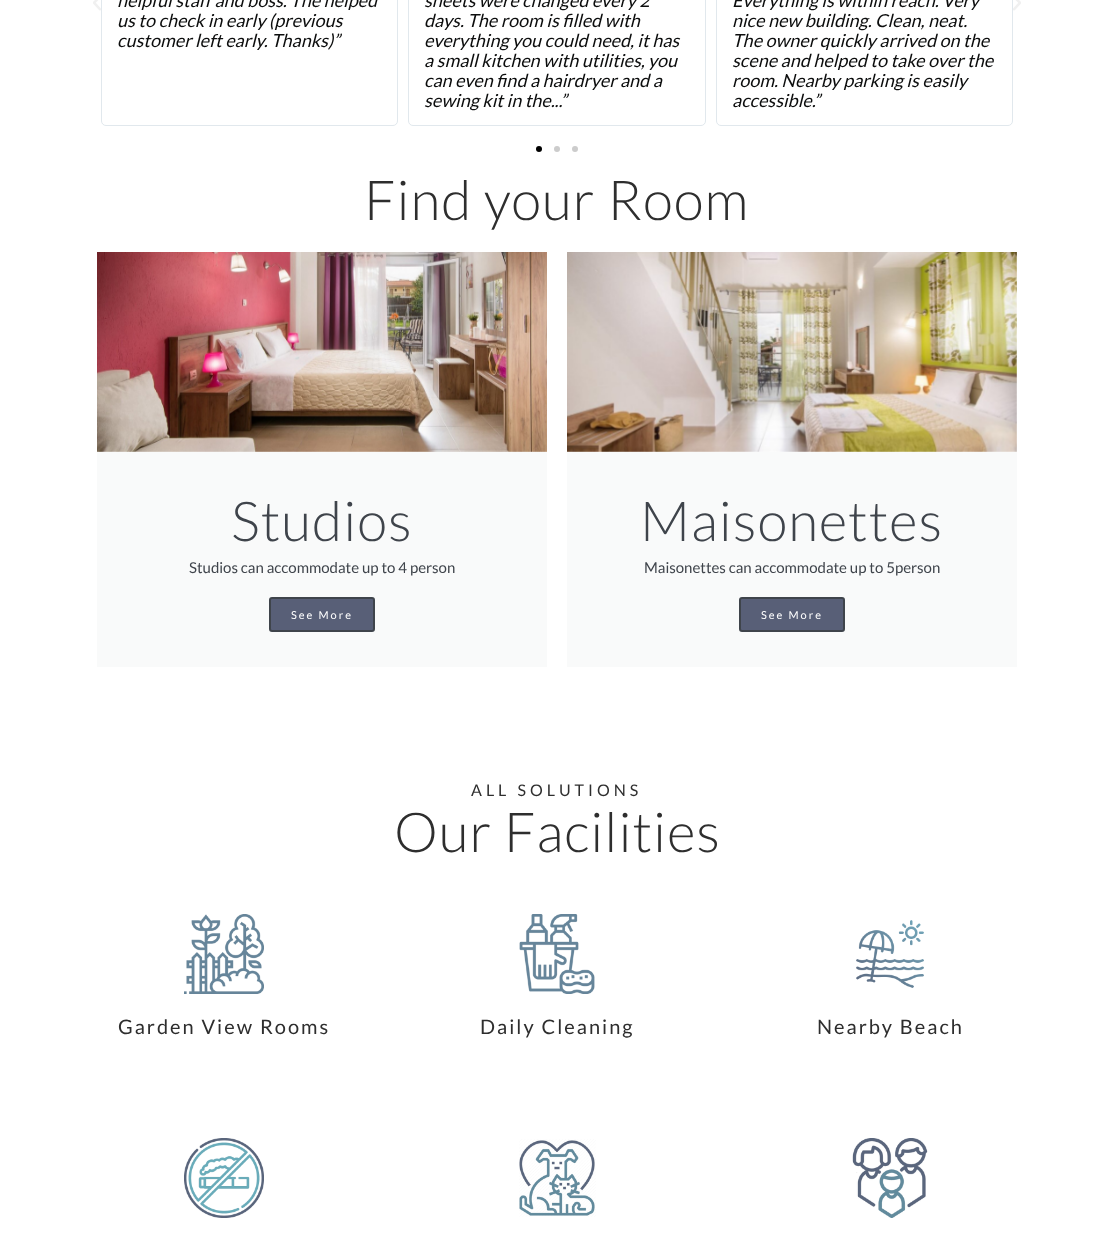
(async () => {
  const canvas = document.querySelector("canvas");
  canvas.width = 1114;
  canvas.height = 1236;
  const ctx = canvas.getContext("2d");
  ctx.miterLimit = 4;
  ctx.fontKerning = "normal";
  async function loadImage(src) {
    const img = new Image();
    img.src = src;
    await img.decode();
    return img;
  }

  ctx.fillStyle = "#ffffff";
  ctx.fillRect(0, 0, 1114, 1236);
  ctx.drawImage(await loadImage("img/1.png"), 93, 0, 8, 11);
  ctx.beginPath();
  ctx.roundRect(101.5, -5.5, 296, 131, 4.5);
  ctx.strokeStyle = "#e1e8ed";
  ctx.stroke();
  ctx.beginPath();
  ctx.roundRect(408.5, -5.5, 297, 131, 4.5);
  ctx.stroke();
  ctx.beginPath();
  ctx.roundRect(716.5, -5.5, 296, 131, 4.5);
  ctx.stroke();
  ctx.drawImage(await loadImage("img/2.png"), 1013, 0, 8, 11);
  ctx.fillStyle = "#000000";
  ctx.beginPath();
  ctx.arc(539, 149, 3, 0, Math.PI * 2);
  ctx.fill();
  ctx.fillStyle = "#cccccc";
  ctx.beginPath();
  ctx.arc(557, 149, 3, 0, Math.PI * 2);
  ctx.fill();
  ctx.beginPath();
  ctx.arc(575, 149, 3, 0, Math.PI * 2);
  ctx.fill();
  ctx.drawImage(await loadImage("img/3.png"), 97, 252, 450, 200);
  ctx.fillStyle = "#f9fafa";
  ctx.fillRect(97, 452, 450, 215);
  ctx.fillStyle = "#585f77";
  ctx.beginPath();
  ctx.roundRect(270, 598, 104, 33, 2);
  ctx.fill();
  ctx.strokeStyle = "#3f444b";
  ctx.lineWidth = 2;
  ctx.stroke();
  ctx.drawImage(await loadImage("img/4.png"), 567, 252, 450, 200);
  ctx.fillStyle = "#f9fafa";
  ctx.fillRect(567, 452, 450, 215);
  ctx.fillStyle = "#585f77";
  ctx.beginPath();
  ctx.roundRect(740, 598, 104, 33, 2);
  ctx.fill();
  ctx.stroke();
  ctx.drawImage(await loadImage("img/5.png"), 184, 914, 80, 80);
  ctx.drawImage(await loadImage("img/6.png"), 519, 914, 76, 80);
  ctx.drawImage(await loadImage("img/7.png"), 856, 920, 68, 68);
  ctx.drawImage(await loadImage("img/8.png"), 184, 1138, 80, 80);
  ctx.drawImage(await loadImage("img/9.png"), 519, 1139, 77, 78);
  ctx.drawImage(await loadImage("img/10.png"), 852, 1138, 76, 80);
  ctx.font = "italic 18px Lato";
  ctx.fillStyle = "#0c0d0d";
  for (const [text, x, y] of [
    ["helpful staff and boss. The helped", 117, 7],
    ["us to check in early (previous", 117, 27],
    ["customer left early. Thanks)”", 117, 47],
    ["sheets were changed every 2", 424, 7],
    ["days. The room is filled with", 424, 27],
    ["everything you could need, it has", 424, 47],
    ["a small kitchen with utilities, you", 424, 67],
    ["can even find a hairdryer and a", 424, 87],
    ["sewing kit in the...”", 424, 107],
    ["Everything is within reach. Very", 732, 7],
    ["nice new building. Clean, neat.", 732, 27],
    ["The owner quickly arrived on the", 732, 47],
    ["scene and helped to take over the", 732, 67],
    ["room. Nearby parking is easily", 732, 87],
    ["accessible.”", 732, 107],
  ]) {
    ctx.fillText(text, x, y);
  }
  ctx.letterSpacing = "1px";
  ctx.font = "300 55px Lato";
  ctx.fillStyle = "#2e2e2e";
  ctx.fillText("Find your Room", 364, 220);
  ctx.fillStyle = "#3f444b";
  ctx.fillText("Studios", 231, 541);
  ctx.letterSpacing = "0px";
  ctx.font = "15px Lato";
  ctx.fillText("Studios can accommodate up to 4 person", 189, 573);
  ctx.letterSpacing = "2px";
  ctx.font = "11px Lato";
  ctx.fillStyle = "#ffffff";
  ctx.fillText("See More", 291, 619);
  ctx.letterSpacing = "1px";
  ctx.font = "300 55px Lato";
  ctx.fillStyle = "#3f444b";
  ctx.fillText("Maisonettes", 640, 541);
  ctx.letterSpacing = "0px";
  ctx.font = "15px Lato";
  ctx.fillText("Maisonettes can accommodate up to 5person", 644, 573);
  ctx.letterSpacing = "2px";
  ctx.font = "11px Lato";
  ctx.fillStyle = "#ffffff";
  ctx.fillText("See More", 761, 619);
  ctx.letterSpacing = "4px";
  ctx.font = "16px Lato";
  ctx.fillStyle = "#2e2e2e";
  ctx.fillText("ALL SOLUTIONS", 471, 796);
  ctx.letterSpacing = "1px";
  ctx.font = "300 55px Lato";
  ctx.fillText("Our Facilities", 394, 852);
  ctx.letterSpacing = "2px";
  ctx.font = "20px Lato";
  for (const [text, x, y] of [
    ["Garden View Rooms", 118, 1034],
    ["Daily Cleaning", 480, 1034],
    ["Nearby Beach", 817, 1034],
  ]) {
    ctx.fillText(text, x, y);
  }
})();
